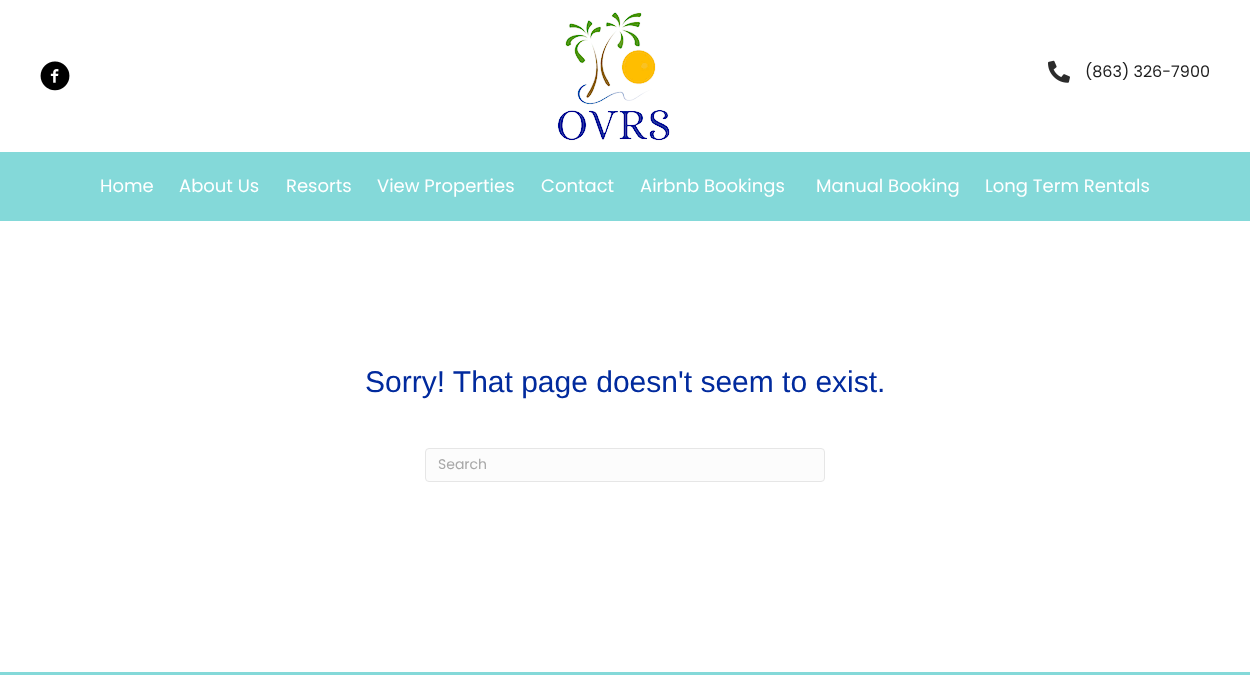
(async () => {
  const canvas = document.querySelector("canvas");
  canvas.width = 1250;
  canvas.height = 675;
  const ctx = canvas.getContext("2d");
  ctx.miterLimit = 4;
  ctx.fontKerning = "normal";
  async function loadImage(src) {
    const img = new Image();
    img.src = src;
    await img.decode();
    return img;
  }

  ctx.fillStyle = "#ffffff";
  ctx.fillRect(0, 0, 1250, 675);
  ctx.drawImage(await loadImage("img/1.png"), 40, 61, 30, 30);
  ctx.drawImage(await loadImage("img/2.png"), 557, 12, 113, 129);
  ctx.drawImage(await loadImage("img/3.png"), 1048, 60, 22, 23);
  ctx.fillStyle = "#84d9d9";
  ctx.fillRect(0, 152, 1250, 69);
  ctx.fillStyle = "#fcfcfc";
  ctx.beginPath();
  ctx.roundRect(425.5, 448.5, 399, 33, 3.5);
  ctx.fill();
  ctx.strokeStyle = "#e6e6e6";
  ctx.stroke();
  ctx.fillStyle = "#84d9d9";
  ctx.fillRect(0, 672, 1250, 3);
  ctx.font = "16px Poppins";
  ctx.fillStyle = "#1e1e1e";
  ctx.fillText("(863) 326-7900", 1085, 77);
  ctx.font = "18px Poppins";
  ctx.fillStyle = "#ffffff";
  for (const [text, x, y] of [
    ["Home", 100, 192],
    ["About Us", 179, 192],
    ["Resorts", 286, 192],
    ["View Properties", 377, 192],
    ["Contact", 541, 192],
    ["Airbnb Bookings", 640, 192],
    ["Manual Booking", 816, 192],
    ["Long Term Rentals", 985, 192],
  ]) {
    ctx.fillText(text, x, y);
  }
  ctx.font = "30px Liberation Sans";
  ctx.fillStyle = "#012a9d";
  ctx.fillText("Sorry! That page doesn't seem to exist.", 365, 392);
  ctx.font = "14px Poppins";
  ctx.fillStyle = "#a8a8a8";
  ctx.fillText("Search", 438, 469);
})();
